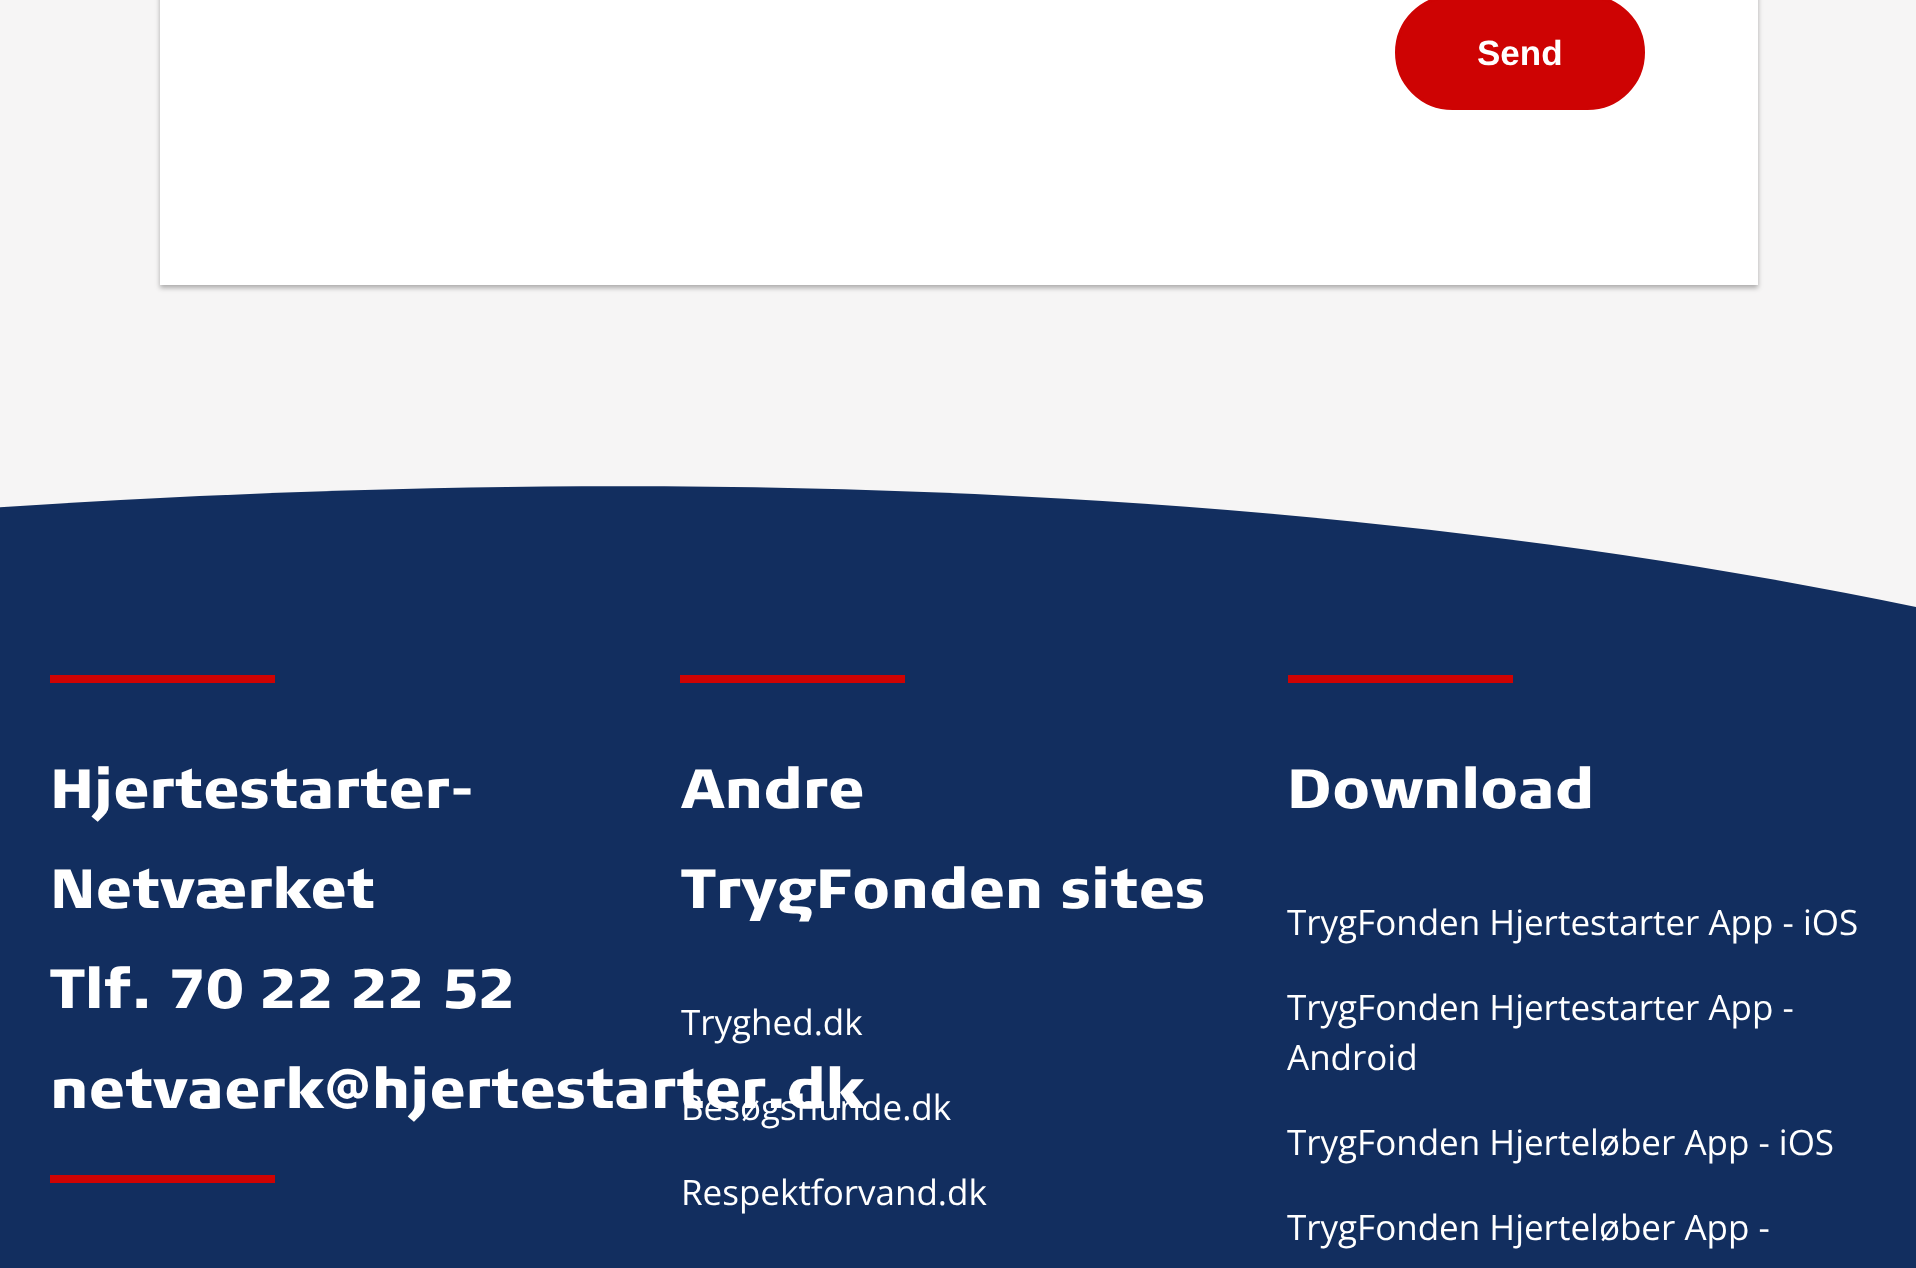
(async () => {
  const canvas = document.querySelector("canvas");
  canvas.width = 1916;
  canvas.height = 1268;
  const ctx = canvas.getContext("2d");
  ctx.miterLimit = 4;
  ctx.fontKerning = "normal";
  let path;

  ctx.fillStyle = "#f6f5f5";
  ctx.fillRect(0, 0, 1916, 1268);
  ctx.fillStyle = "rgba(0, 0, 0, 0.3)";
  ctx.filter = "blur(2.5px)";
  ctx.beginPath();
  ctx.rect(160, -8, 1598, 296);
  ctx.fill();
  ctx.filter = "none";
  ctx.fillStyle = "#ffffff";
  ctx.fillRect(160, 0, 1598, 285);
  ctx.fillStyle = "#ce0303";
  ctx.beginPath();
  ctx.roundRect(1396.5, -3.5, 247, 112, 56);
  ctx.fill();
  ctx.strokeStyle = "#ce0303";
  ctx.lineWidth = 3;
  ctx.stroke();
  ctx.fillStyle = "#122e5f";
  path = new Path2D("M-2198 839C946 143 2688 550 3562 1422C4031 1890 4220 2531 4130 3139H-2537C-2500 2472-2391 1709-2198 839Z");
  ctx.fill(path);
  for (const [x, y, w, h, color] of [
    [50, 675, 225, 8, "#ce0303"],
    [50, 1175, 225, 8, "#ce0303"],
    [680, 675, 225, 8, "#ce0303"],
    [1288, 675, 225, 8, "#ce0303"],
  ]) {
    ctx.fillStyle = color;
    ctx.fillRect(x, y, w, h);
  }
  ctx.font = "bold 35px Liberation Sans";
  ctx.fillStyle = "#ffffff";
  ctx.fillText("Send", 1477, 65);
  ctx.font = "900 55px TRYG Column";
  for (const [text, x, y] of [
    ["Hjertestarter-", 50, 808],
    ["Netværket", 50, 908],
    ["Tlf. 70 22 22 52", 50, 1008],
    ["netvaerk@hjertestarter.dk", 50, 1108],
    ["Andre", 681, 808],
    ["TrygFonden sites", 681, 908],
  ]) {
    ctx.fillText(text, x, y);
  }
  ctx.font = "35px Open Sans";
  for (const [text, x, y] of [
    ["Tryghed.dk", 681, 1035],
    ["Besøgshunde.dk", 681, 1120],
    ["Respektforvand.dk", 681, 1205],
  ]) {
    ctx.fillText(text, x, y);
  }
  ctx.font = "900 55px TRYG Column";
  ctx.fillText("Download", 1287, 808);
  ctx.font = "35px Open Sans";
  for (const [text, x, y] of [
    ["TrygFonden Hjertestarter App - iOS", 1287, 935],
    ["TrygFonden Hjertestarter App -", 1287, 1020],
    ["Android", 1287, 1070],
    ["TrygFonden Hjerteløber App - iOS", 1287, 1155],
    ["TrygFonden Hjerteløber App -", 1287, 1240],
  ]) {
    ctx.fillText(text, x, y);
  }
})();
